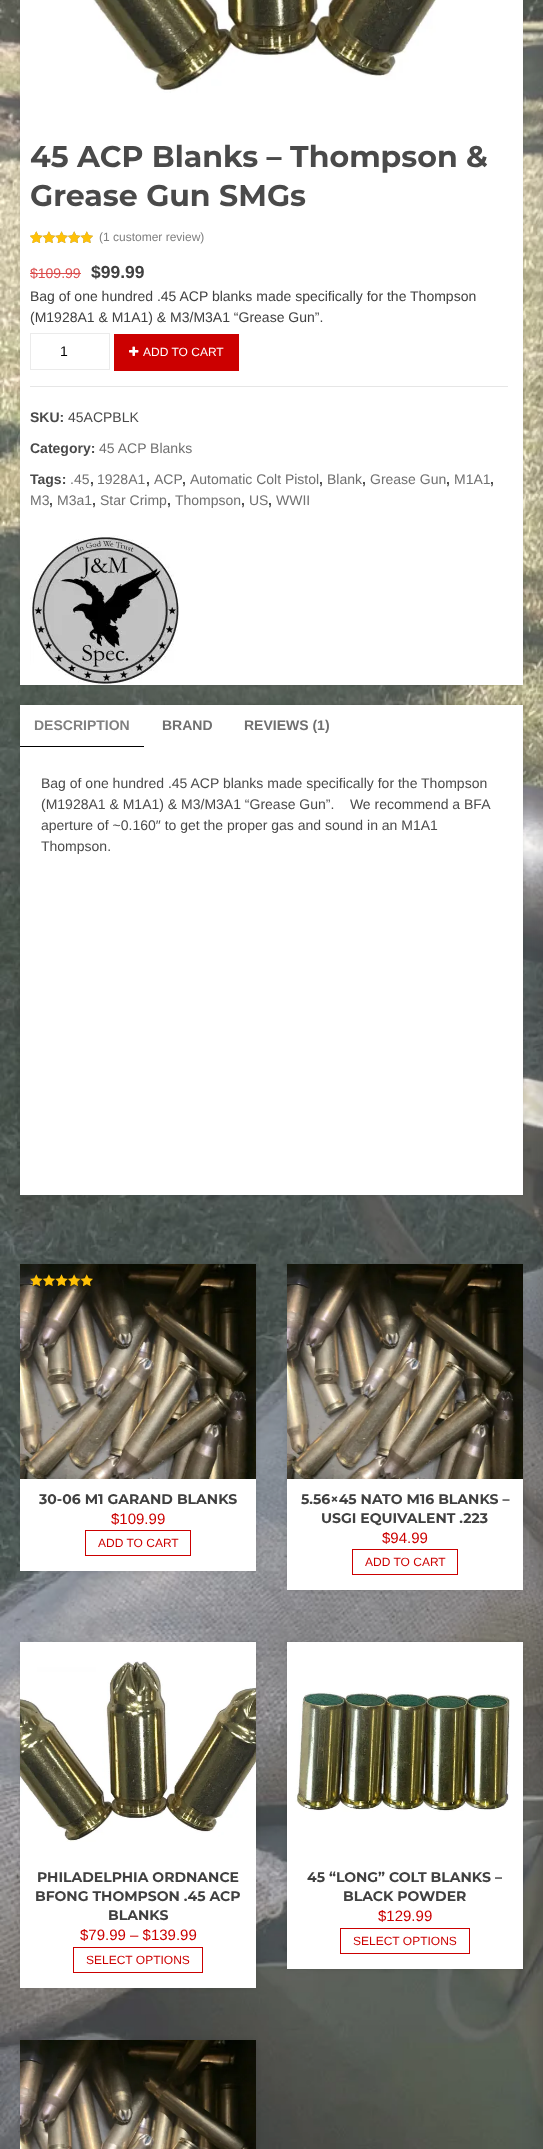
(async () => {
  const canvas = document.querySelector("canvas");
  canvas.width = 543;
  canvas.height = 2149;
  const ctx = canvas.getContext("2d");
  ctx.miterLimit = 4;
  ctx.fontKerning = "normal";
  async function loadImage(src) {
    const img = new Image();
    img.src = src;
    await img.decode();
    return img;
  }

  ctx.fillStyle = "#ffffff";
  ctx.fillRect(0, 0, 543, 2149);
  ctx.drawImage(await loadImage("img/1.png"), 0, 0, 543, 2149);
  ctx.fillStyle = "rgba(0, 0, 0, 0.1)";
  ctx.filter = "blur(2.5px)";
  ctx.beginPath();
  ctx.rect(20, -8, 503, 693);
  ctx.fill();
  ctx.filter = "none";
  ctx.fillStyle = "#ffffff";
  ctx.fillRect(20, 0, 503, 685);
  ctx.drawImage(await loadImage("img/2.png"), 93, 0, 343, 93);
  ctx.drawImage(await loadImage("img/3.png"), 30, 231, 63, 12);
  ctx.drawImage(await loadImage("img/4.png"), 30, 231, 63, 12);
  ctx.drawImage(await loadImage("img/5.png"), 30, 232, 6, 11);
  ctx.fillStyle = "#db4d4d";
  ctx.fillRect(30, 273, 51, 1);
  ctx.strokeStyle = "#ebebeb";
  ctx.strokeRect(30.5, 333.5, 79, 36);
  ctx.fillStyle = "#cc0000";
  ctx.fillRect(114, 334, 125, 37);
  ctx.drawImage(await loadImage("img/6.png"), 129, 346, 10, 10);
  ctx.fillStyle = "#e6e6e6";
  ctx.fillRect(30, 386, 478, 1);
  ctx.drawImage(await loadImage("img/7.png"), 30, 535, 150, 150);
  ctx.fillStyle = "rgba(0, 0, 0, 0.1)";
  ctx.filter = "blur(2.5px)";
  ctx.beginPath();
  ctx.rect(20, 705, 503, 490);
  ctx.fill();
  ctx.filter = "none";
  ctx.fillStyle = "#ffffff";
  ctx.fillRect(20, 705, 503, 490);
  ctx.fillStyle = "#000000";
  ctx.fillRect(20, 746, 124, 1);
  ctx.fillStyle = "rgba(0, 0, 0, 0.1)";
  ctx.filter = "blur(2.5px)";
  ctx.beginPath();
  ctx.rect(20, 1264, 236, 307);
  ctx.fill();
  ctx.filter = "none";
  ctx.fillStyle = "#ffffff";
  ctx.fillRect(20, 1479, 236, 92);
  ctx.drawImage(await loadImage("img/8.png"), 20, 1264, 236, 215);
  ctx.drawImage(await loadImage("img/9.png"), 30, 1274, 63, 12);
  ctx.drawImage(await loadImage("img/10.png"), 30, 1274, 63, 12);
  ctx.strokeStyle = "#cc0000";
  ctx.strokeRect(85.5, 1530.5, 105, 25);
  ctx.fillStyle = "rgba(0, 0, 0, 0.1)";
  ctx.filter = "blur(2.5px)";
  ctx.beginPath();
  ctx.rect(287, 1264, 236, 326);
  ctx.fill();
  ctx.filter = "none";
  ctx.fillStyle = "#ffffff";
  ctx.fillRect(287, 1479, 236, 111);
  ctx.drawImage(await loadImage("img/8.png"), 287, 1264, 236, 215);
  ctx.strokeRect(352.5, 1549.5, 105, 25);
  ctx.fillStyle = "rgba(0, 0, 0, 0.1)";
  ctx.filter = "blur(2.5px)";
  ctx.beginPath();
  ctx.rect(20, 1642, 236, 346);
  ctx.fill();
  ctx.filter = "none";
  ctx.fillStyle = "#ffffff";
  ctx.fillRect(20, 1642, 236, 346);
  ctx.drawImage(await loadImage("img/11.png"), 20, 1661, 236, 181);
  ctx.strokeRect(73.5, 1947.5, 129, 25);
  ctx.fillStyle = "rgba(0, 0, 0, 0.1)";
  ctx.filter = "blur(2.5px)";
  ctx.beginPath();
  ctx.rect(287, 1642, 236, 327);
  ctx.fill();
  ctx.filter = "none";
  ctx.fillStyle = "#ffffff";
  ctx.fillRect(287, 1642, 236, 327);
  ctx.drawImage(await loadImage("img/12.png"), 295, 1692, 215, 120);
  ctx.strokeRect(340.5, 1928.5, 129, 25);
  ctx.fillStyle = "rgba(0, 0, 0, 0.1)";
  ctx.filter = "blur(2.5px)";
  ctx.beginPath();
  ctx.rect(20, 2040, 236, 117);
  ctx.fill();
  ctx.filter = "none";
  ctx.drawImage(await loadImage("img/13.png"), 20, 2040, 236, 109);
  ctx.filter = "blur(7.5px)";
  ctx.beginPath();
  ctx.rect(536, 0, 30, 2149);
  ctx.fill();
  ctx.filter = "none";
  ctx.font = "bold 30px Montserrat";
  ctx.fillStyle = "#4a4a4a";
  ctx.fillText("45 ACP Blanks – Thompson &", 30, 167);
  ctx.fillText("Grease Gun SMGs", 30, 206);
  ctx.font = "12px Liberation Sans";
  ctx.fillStyle = "#808080";
  ctx.fillText("(1 customer review)", 99, 241);
  ctx.font = "14px Liberation Sans";
  ctx.fillStyle = "#db4d4d";
  ctx.fillText("$109.99", 30, 278);
  ctx.font = "bold 17.5px Liberation Sans";
  ctx.fillStyle = "#404040";
  ctx.fillText("$99.99", 91, 278);
  ctx.font = "14px Liberation Sans";
  ctx.fillText("Bag of one hundred .45 ACP blanks made specifically for the Thompson", 30, 301);
  ctx.fillText("(M1928A1 & M1A1) & M3/M3A1 “Grease Gun”.", 30, 322);
  ctx.fillStyle = "#000000";
  ctx.fillText("1", 60, 356);
  ctx.font = "12px Liberation Sans";
  ctx.fillStyle = "#ffffff";
  ctx.fillText("ADD TO CART", 143, 356);
  ctx.font = "bold 14px Liberation Sans";
  ctx.fillStyle = "#4a4a4a";
  ctx.fillText("SKU:", 30, 422);
  ctx.font = "14px Liberation Sans";
  ctx.fillText("45ACPBLK", 68, 422);
  ctx.font = "bold 14px Liberation Sans";
  ctx.fillText("Category:", 30, 453);
  ctx.font = "14px Liberation Sans";
  ctx.fillStyle = "#707070";
  ctx.fillText("45 ACP Blanks", 99, 453);
  ctx.font = "bold 14px Liberation Sans";
  ctx.fillStyle = "#4a4a4a";
  ctx.fillText("Tags:", 30, 484);
  ctx.font = "14px Liberation Sans";
  ctx.fillStyle = "#707070";
  ctx.fillText(".45", 70, 484);
  ctx.font = "bold 14px Liberation Sans";
  ctx.fillStyle = "#4a4a4a";
  ctx.fillText(",", 90, 484);
  ctx.font = "14px Liberation Sans";
  ctx.fillStyle = "#707070";
  ctx.fillText("1928A1", 97, 484);
  ctx.font = "bold 14px Liberation Sans";
  ctx.fillStyle = "#4a4a4a";
  ctx.fillText(",", 146, 484);
  ctx.font = "14px Liberation Sans";
  ctx.fillStyle = "#707070";
  ctx.fillText("ACP", 154, 484);
  ctx.font = "bold 14px Liberation Sans";
  ctx.fillStyle = "#4a4a4a";
  ctx.fillText(",", 182, 484);
  ctx.font = "14px Liberation Sans";
  ctx.fillStyle = "#707070";
  ctx.fillText("Automatic Colt Pistol", 190, 484);
  ctx.font = "bold 14px Liberation Sans";
  ctx.fillStyle = "#4a4a4a";
  ctx.fillText(",", 319, 484);
  ctx.font = "14px Liberation Sans";
  ctx.fillStyle = "#707070";
  ctx.fillText("Blank", 327, 484);
  ctx.font = "bold 14px Liberation Sans";
  ctx.fillStyle = "#4a4a4a";
  ctx.fillText(",", 362, 484);
  ctx.font = "14px Liberation Sans";
  ctx.fillStyle = "#707070";
  ctx.fillText("Grease Gun", 370, 484);
  ctx.font = "bold 14px Liberation Sans";
  ctx.fillStyle = "#4a4a4a";
  ctx.fillText(",", 446, 484);
  ctx.font = "14px Liberation Sans";
  ctx.fillStyle = "#707070";
  ctx.fillText("M1A1", 454, 484);
  ctx.font = "bold 14px Liberation Sans";
  ctx.fillStyle = "#4a4a4a";
  ctx.fillText(",", 490, 484);
  ctx.font = "14px Liberation Sans";
  ctx.fillStyle = "#707070";
  ctx.fillText("M3", 30, 505);
  ctx.font = "bold 14px Liberation Sans";
  ctx.fillStyle = "#4a4a4a";
  ctx.fillText(",", 49, 505);
  ctx.font = "14px Liberation Sans";
  ctx.fillStyle = "#707070";
  ctx.fillText("M3a1", 57, 505);
  ctx.font = "bold 14px Liberation Sans";
  ctx.fillStyle = "#4a4a4a";
  ctx.fillText(",", 92, 505);
  ctx.font = "14px Liberation Sans";
  ctx.fillStyle = "#707070";
  ctx.fillText("Star Crimp", 100, 505);
  ctx.font = "bold 14px Liberation Sans";
  ctx.fillStyle = "#4a4a4a";
  ctx.fillText(",", 167, 505);
  ctx.font = "14px Liberation Sans";
  ctx.fillStyle = "#707070";
  ctx.fillText("Thompson", 175, 505);
  ctx.font = "bold 14px Liberation Sans";
  ctx.fillStyle = "#4a4a4a";
  ctx.fillText(",", 241, 505);
  ctx.font = "14px Liberation Sans";
  ctx.fillStyle = "#707070";
  ctx.fillText("US", 249, 505);
  ctx.font = "bold 14px Liberation Sans";
  ctx.fillStyle = "#4a4a4a";
  ctx.fillText(",", 268, 505);
  ctx.font = "14px Liberation Sans";
  ctx.fillStyle = "#707070";
  ctx.fillText("WWII", 276, 505);
  ctx.font = "bold 14px Liberation Sans";
  ctx.fillStyle = "#808080";
  ctx.fillText("DESCRIPTION", 34, 730);
  ctx.fillStyle = "#707070";
  ctx.fillText("BRAND", 162, 730);
  ctx.fillText("REVIEWS (1)", 244, 730);
  ctx.font = "14px Liberation Sans";
  ctx.fillStyle = "#4a4a4a";
  for (const [text, x, y] of [
    ["Bag of one hundred .45 ACP blanks made specifically for the Thompson", 41, 788],
    ["(M1928A1 & M1A1) & M3/M3A1 “Grease Gun”.    We recommend a BFA", 41, 809],
    ["aperture of ~0.160″ to get the proper gas and sound in an M1A1", 41, 830],
    ["Thompson.", 41, 851],
  ]) {
    ctx.fillText(text, x, y);
  }
  ctx.font = "bold 14px Montserrat";
  ctx.fillStyle = "#404040";
  ctx.fillText("30-06 M1 GARAND BLANKS", 39, 1504);
  ctx.font = "15px Liberation Sans";
  ctx.fillStyle = "#cc0000";
  ctx.fillText("$109.99", 111, 1524);
  ctx.font = "12px Liberation Sans";
  ctx.fillText("ADD TO CART", 98, 1547);
  ctx.font = "bold 14px Montserrat";
  ctx.fillStyle = "#404040";
  ctx.fillText("5.56×45 NATO M16 BLANKS –", 301, 1504);
  ctx.fillText("USGI EQUIVALENT .223", 321, 1523);
  ctx.font = "15px Liberation Sans";
  ctx.fillStyle = "#cc0000";
  ctx.fillText("$94.99", 382, 1543);
  ctx.font = "12px Liberation Sans";
  ctx.fillText("ADD TO CART", 365, 1566);
  ctx.font = "bold 14px Montserrat";
  ctx.fillStyle = "#404040";
  for (const [text, x, y] of [
    ["PHILADELPHIA ORDNANCE", 37, 1882],
    ["BFONG THOMPSON .45 ACP", 35, 1901],
    ["BLANKS", 108, 1920],
  ]) {
    ctx.fillText(text, x, y);
  }
  ctx.font = "15px Liberation Sans";
  ctx.fillStyle = "#cc0000";
  ctx.fillText("$79.99 – $139.99", 80, 1940);
  ctx.font = "12px Liberation Sans";
  ctx.fillText("SELECT OPTIONS", 86, 1964);
  ctx.font = "bold 14px Montserrat";
  ctx.fillStyle = "#404040";
  ctx.fillText("45 “LONG” COLT BLANKS –", 307, 1882);
  ctx.fillText("BLACK POWDER", 343, 1901);
  ctx.font = "15px Liberation Sans";
  ctx.fillStyle = "#cc0000";
  ctx.fillText("$129.99", 378, 1921);
  ctx.font = "12px Liberation Sans";
  ctx.fillText("SELECT OPTIONS", 353, 1945);
})();
